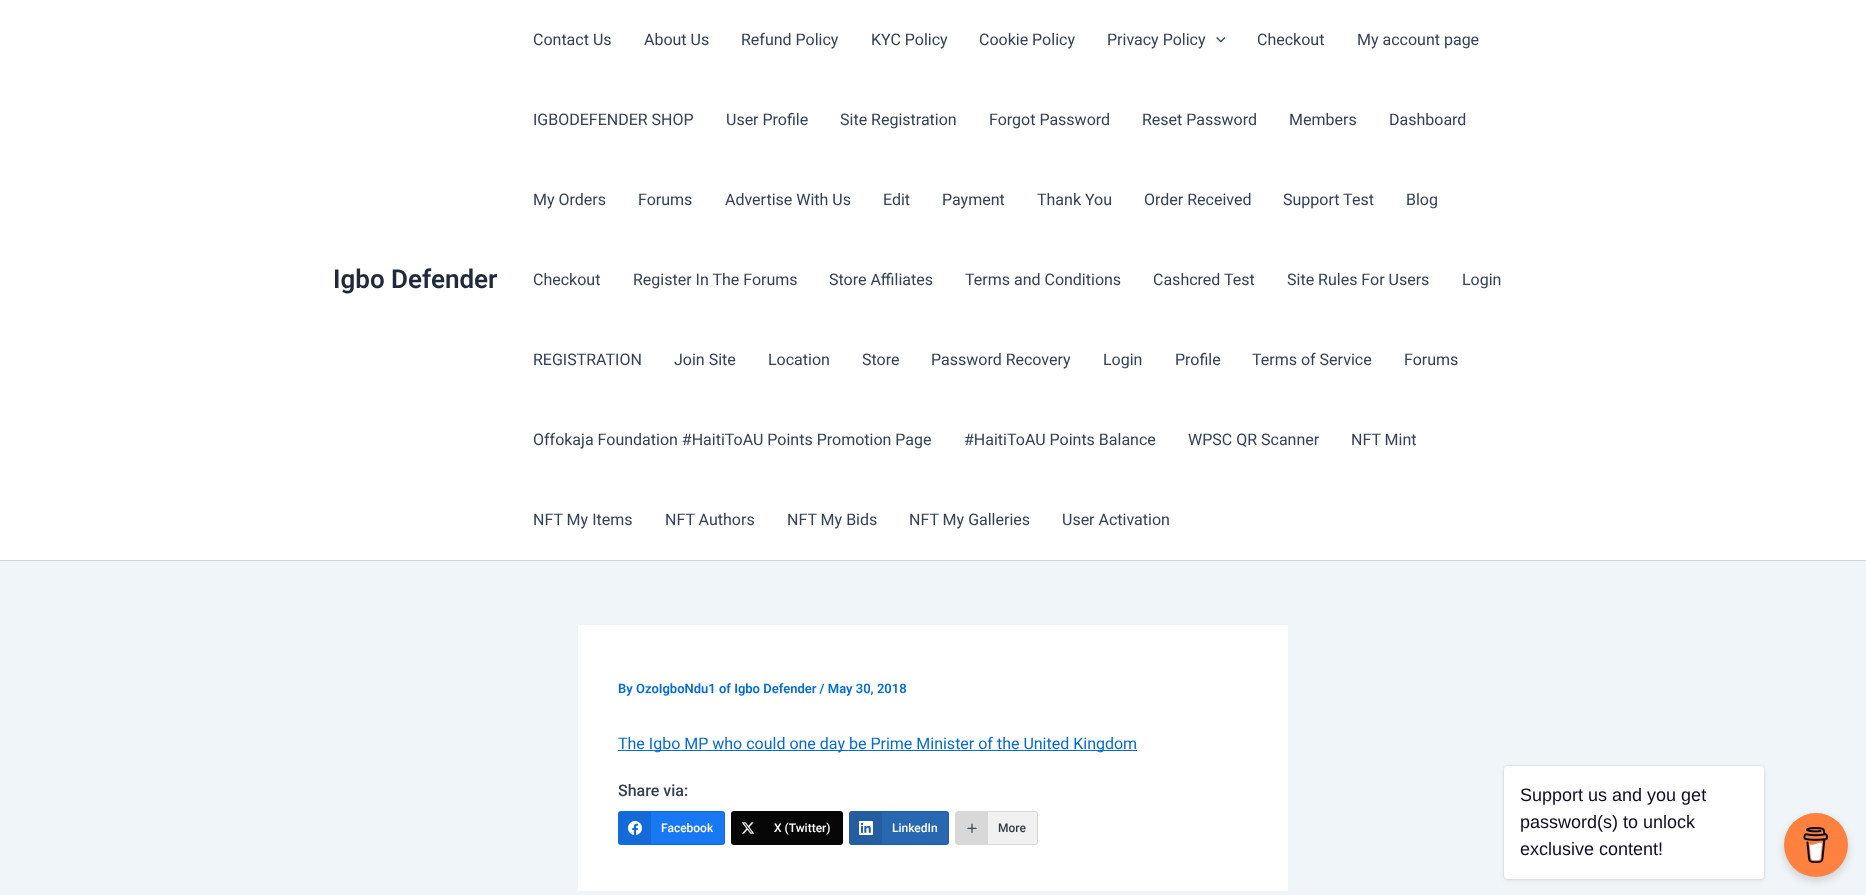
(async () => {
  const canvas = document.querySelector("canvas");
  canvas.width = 1866;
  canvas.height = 895;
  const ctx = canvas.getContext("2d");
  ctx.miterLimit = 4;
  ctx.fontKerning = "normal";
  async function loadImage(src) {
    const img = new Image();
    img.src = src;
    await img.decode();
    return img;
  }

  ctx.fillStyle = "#f0f5fa";
  ctx.fillRect(0, 0, 1866, 895);
  ctx.fillStyle = "#ffffff";
  ctx.fillRect(0, 0, 1866, 560);
  ctx.fillStyle = "#d1d5db";
  ctx.fillRect(0, 560, 1866, 1);
  ctx.drawImage(await loadImage("img/1.png"), 1216, 37, 9, 6);
  ctx.fillStyle = "#ffffff";
  ctx.fillRect(578, 625, 710, 266);
  ctx.fillStyle = "#046bd2";
  ctx.fillRect(618, 750, 519, 1);
  ctx.fillStyle = "#1877f2";
  ctx.beginPath();
  ctx.roundRect(618, 811, 107, 34, 3);
  ctx.fill();
  ctx.beginPath();
  ctx.roundRect(618.5, 811.5, 106, 33, 2.5);
  ctx.strokeStyle = "rgba(0, 0, 0, 0.1)";
  ctx.stroke();
  ctx.fillStyle = "rgba(0, 0, 0, 0.1)";
  ctx.beginPath();
  ctx.roundRect(619, 812, 32, 32, [2, 0, 0, 2]);
  ctx.fill();
  ctx.drawImage(await loadImage("img/2.png"), 628, 821, 14, 14);
  ctx.fillStyle = "#060606";
  ctx.beginPath();
  ctx.roundRect(731, 811, 112, 34, 3);
  ctx.fill();
  ctx.beginPath();
  ctx.roundRect(731.5, 811.5, 111, 33, 2.5);
  ctx.stroke();
  ctx.drawImage(await loadImage("img/3.png"), 741, 822, 14, 12);
  ctx.fillStyle = "#2867b2";
  ctx.beginPath();
  ctx.roundRect(849, 811, 100, 34, 3);
  ctx.fill();
  ctx.beginPath();
  ctx.roundRect(849.5, 811.5, 99, 33, 2.5);
  ctx.stroke();
  ctx.fillStyle = "#245da0";
  ctx.beginPath();
  ctx.roundRect(850, 812, 32, 32, [2, 0, 0, 2]);
  ctx.fill();
  ctx.drawImage(await loadImage("img/4.png"), 859, 821, 14, 14);
  ctx.fillStyle = "#f1f1f1";
  ctx.beginPath();
  ctx.roundRect(955, 811, 83, 34, 3);
  ctx.fill();
  ctx.beginPath();
  ctx.roundRect(955.5, 811.5, 82, 33, 2.5);
  ctx.stroke();
  ctx.fillStyle = "rgba(0, 0, 0, 0.1)";
  ctx.beginPath();
  ctx.roundRect(956, 812, 32, 32, [2, 0, 0, 2]);
  ctx.fill();
  ctx.drawImage(await loadImage("img/5.png"), 967, 823, 10, 10);
  ctx.fillStyle = "rgba(0, 0, 0, 0.15)";
  ctx.filter = "blur(1px)";
  ctx.beginPath();
  ctx.roundRect(1504, 766, 260, 113, 4);
  ctx.fill();
  ctx.filter = "none";
  ctx.fillStyle = "rgba(0, 0, 0, 0.05)";
  ctx.filter = "blur(2.5px)";
  ctx.beginPath();
  ctx.roundRect(1504, 768, 260, 113, 4);
  ctx.fill();
  ctx.filter = "none";
  ctx.fillStyle = "#ffffff";
  ctx.beginPath();
  ctx.roundRect(1504, 766, 260, 113, 4);
  ctx.fill();
  ctx.fillStyle = "rgba(0, 0, 0, 0.15)";
  ctx.filter = "blur(4px)";
  ctx.beginPath();
  ctx.roundRect(1784, 817, 64, 64, 32);
  ctx.fill();
  ctx.filter = "none";
  ctx.fillStyle = "#ff813f";
  ctx.beginPath();
  ctx.arc(1816, 845, 32, 0, Math.PI * 2);
  ctx.fill();
  ctx.drawImage(await loadImage("img/6.png"), 1803, 827, 26, 36);
  ctx.font = "600 26px Roboto";
  ctx.fillStyle = "#1e293b";
  ctx.fillText("Igbo Defender", 333, 288);
  ctx.font = "16px Roboto";
  ctx.fillStyle = "#334155";
  for (const [text, x, y] of [
    ["Contact Us", 533, 45],
    ["About Us", 644, 45],
    ["Refund Policy", 741, 45],
    ["KYC Policy", 871, 45],
    ["Cookie Policy", 979, 45],
    ["Privacy Policy", 1107, 45],
    ["Checkout", 1257, 45],
    ["My account page", 1357, 45],
    ["IGBODEFENDER SHOP", 533, 125],
    ["User Profile", 726, 125],
    ["Site Registration", 840, 125],
    ["Forgot Password", 989, 125],
    ["Reset Password", 1142, 125],
    ["Members", 1289, 125],
    ["Dashboard", 1389, 125],
    ["My Orders", 533, 205],
    ["Forums", 638, 205],
    ["Advertise With Us", 725, 205],
    ["Edit", 883, 205],
    ["Payment", 942, 205],
    ["Thank You", 1037, 205],
    ["Order Received", 1144, 205],
    ["Support Test", 1283, 205],
    ["Blog", 1406, 205],
    ["Checkout", 533, 285],
    ["Register In The Forums", 633, 285],
    ["Store Affiliates", 829, 285],
    ["Terms and Conditions", 965, 285],
    ["Cashcred Test", 1153, 285],
    ["Site Rules For Users", 1287, 285],
    ["Login", 1462, 285],
    ["REGISTRATION", 533, 365],
    ["Join Site", 674, 365],
    ["Location", 768, 365],
    ["Store", 862, 365],
    ["Password Recovery", 931, 365],
    ["Login", 1103, 365],
    ["Profile", 1175, 365],
    ["Terms of Service", 1252, 365],
    ["Forums", 1404, 365],
    ["Offokaja Foundation #HaitiToAU Points Promotion Page", 533, 445],
    ["#HaitiToAU Points Balance", 964, 445],
    ["WPSC QR Scanner", 1188, 445],
    ["NFT Mint", 1351, 445],
    ["NFT My Items", 533, 525],
    ["NFT Authors", 665, 525],
    ["NFT My Bids", 787, 525],
    ["NFT My Galleries", 909, 525],
    ["User Activation", 1062, 525],
  ]) {
    ctx.fillText(text, x, y);
  }
  ctx.font = "600 13px Roboto";
  ctx.fillStyle = "#046bd2";
  ctx.fillText("By OzoIgboNdu1 of Igbo Defender / May 30, 2018", 618, 693);
  ctx.font = "16px Roboto";
  ctx.fillText("The Igbo MP who could one day be Prime Minister of the United Kingdom", 618, 749);
  ctx.font = "500 16px Roboto";
  ctx.fillStyle = "#334155";
  ctx.fillText("Share via:", 618, 796);
  ctx.font = "500 12px Roboto";
  ctx.fillStyle = "#ffffff";
  for (const [text, x, y] of [
    ["Facebook", 661, 832],
    ["X (Twitter)", 774, 832],
    ["LinkedIn", 892, 832],
  ]) {
    ctx.fillText(text, x, y);
  }
  ctx.fillStyle = "#323b43";
  ctx.fillText("More", 998, 832);
  ctx.font = "18px Liberation Sans";
  ctx.fillStyle = "#0d0c22";
  for (const [text, x, y] of [
    ["Support us and you get", 1520, 801],
    ["password(s) to unlock", 1520, 828],
    ["exclusive content!", 1520, 855],
  ]) {
    ctx.fillText(text, x, y);
  }
})();
